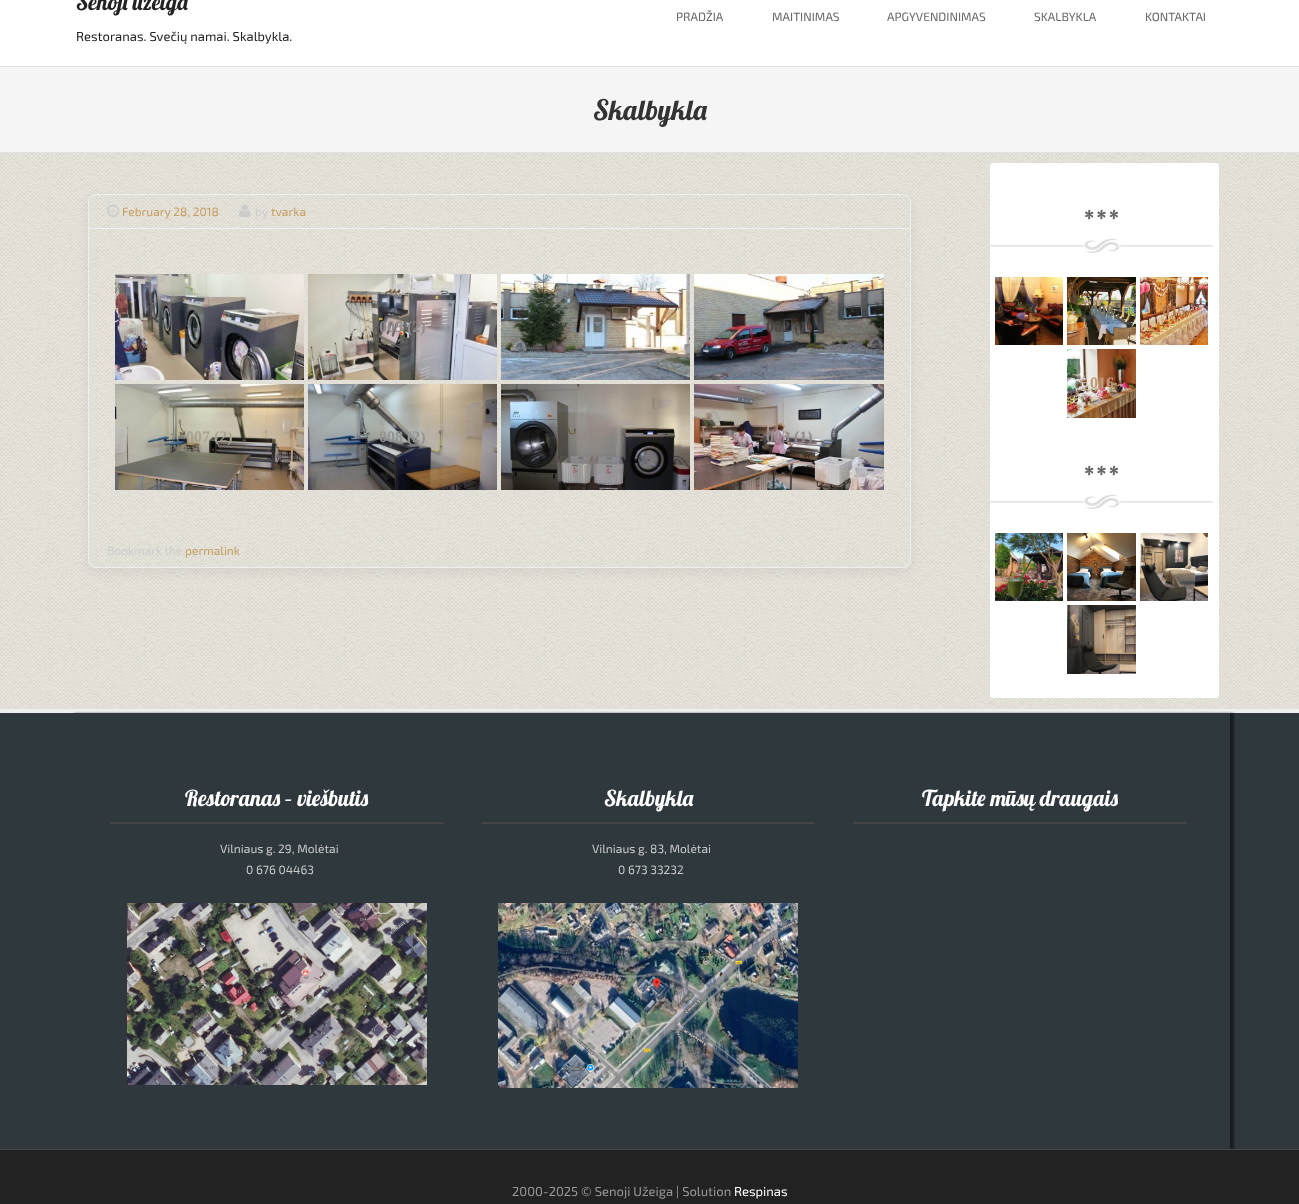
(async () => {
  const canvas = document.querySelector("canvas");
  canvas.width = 1299;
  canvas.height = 1204;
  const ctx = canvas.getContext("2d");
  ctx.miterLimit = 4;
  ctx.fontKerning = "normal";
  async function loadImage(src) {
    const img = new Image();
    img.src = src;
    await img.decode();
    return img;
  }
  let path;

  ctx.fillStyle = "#ffffff";
  ctx.fillRect(0, 0, 1299, 1204);
  ctx.drawImage(await loadImage("img/1.png"), 0, 153, 1299, 556);
  for (const [x, y, w, h, color] of [
    [0, 67, 1299, 85, "#f5f5f5"],
    [0, 66, 1299, 1, "#e1e1e1"],
    [0, 152, 1299, 1, "#e1e1e1"],
  ]) {
    ctx.fillStyle = color;
    ctx.fillRect(x, y, w, h);
  }
  ctx.save();
  path = new Path2D("M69 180H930V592H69ZM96 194H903C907.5 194 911 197.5 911 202V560C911 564.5 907.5 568 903 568H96C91.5 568 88 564.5 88 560V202C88 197.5 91.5 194 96 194Z");
  ctx.clip(path, "evenodd");
  ctx.fillStyle = "rgba(0, 0, 0, 0.06)";
  ctx.filter = "blur(6px)";
  ctx.beginPath();
  ctx.roundRect(88, 199, 823, 374, 8);
  ctx.fill();
  ctx.filter = "none";
  ctx.restore();
  ctx.beginPath();
  ctx.roundRect(88.5, 194.5, 822, 373, 7.5);
  ctx.strokeStyle = "#efefef";
  ctx.stroke();
  ctx.fillStyle = "#ecf1f5";
  ctx.fillRect(89, 228, 821, 1);
  ctx.drawImage(await loadImage("img/2.png"), 107, 204, 13, 13);
  ctx.drawImage(await loadImage("img/3.png"), 239, 204, 12, 13);
  ctx.drawImage(await loadImage("img/4.png"), 115, 274, 189, 106);
  ctx.drawImage(await loadImage("img/5.png"), 308, 274, 189, 106);
  ctx.drawImage(await loadImage("img/6.png"), 501, 274, 189, 106);
  ctx.drawImage(await loadImage("img/7.png"), 694, 274, 190, 106);
  ctx.drawImage(await loadImage("img/8.png"), 115, 384, 189, 106);
  ctx.drawImage(await loadImage("img/9.png"), 308, 384, 189, 106);
  ctx.drawImage(await loadImage("img/10.png"), 501, 384, 189, 106);
  ctx.drawImage(await loadImage("img/11.png"), 694, 384, 190, 106);
  ctx.fillStyle = "#ffffff";
  ctx.beginPath();
  ctx.roundRect(990, 163, 229, 535, 3);
  ctx.fill();
  ctx.drawImage(await loadImage("img/12.png"), 990, 238, 223, 15);
  ctx.drawImage(await loadImage("img/13.png"), 995, 277, 68, 68);
  ctx.drawImage(await loadImage("img/14.png"), 1067, 277, 69, 68);
  ctx.drawImage(await loadImage("img/15.png"), 1140, 277, 68, 68);
  ctx.drawImage(await loadImage("img/16.png"), 1067, 349, 69, 69);
  ctx.drawImage(await loadImage("img/12.png"), 990, 494, 223, 15);
  ctx.drawImage(await loadImage("img/17.png"), 995, 533, 68, 68);
  ctx.drawImage(await loadImage("img/18.png"), 1067, 533, 69, 68);
  ctx.drawImage(await loadImage("img/19.png"), 1140, 533, 68, 68);
  ctx.drawImage(await loadImage("img/20.png"), 1067, 605, 69, 69);
  ctx.fillStyle = "#2f383d";
  ctx.fillRect(0, 713, 1299, 436);
  ctx.fillStyle = "#efefef";
  ctx.fillRect(0, 709, 1299, 4);
  ctx.save();
  path = new Path2D("M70 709H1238V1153H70ZM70 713H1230V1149H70Z");
  ctx.clip(path, "evenodd");
  ctx.fillStyle = "rgba(0, 0, 0, 0.5)";
  ctx.filter = "blur(1px)";
  ctx.beginPath();
  ctx.rect(74, 713, 1160, 436);
  ctx.fill();
  ctx.filter = "none";
  ctx.restore();
  ctx.fillStyle = "#444444";
  ctx.fillRect(110, 822, 334, 2);
  ctx.drawImage(await loadImage("img/21.png"), 127, 903, 300, 182);
  ctx.fillRect(481, 822, 334, 2);
  ctx.drawImage(await loadImage("img/22.png"), 498, 903, 300, 185);
  for (const [x, y, w, h, color] of [
    [853, 822, 334, 2, "#444444"],
    [0, 1150, 1299, 54, "#222222"],
    [0, 1149, 1299, 1, "#444444"],
  ]) {
    ctx.fillStyle = color;
    ctx.fillRect(x, y, w, h);
  }
  ctx.font = "22px Lobster";
  ctx.fillStyle = "#222222";
  ctx.fillText("Senoji užeiga", 76, 10);
  ctx.font = "13px 'Exo 2'";
  ctx.fillText("Restoranas. Svečių namai. Skalbykla.", 76, 41);
  ctx.font = "12px 'Exo 2'";
  ctx.fillStyle = "#666666";
  for (const [text, x, y] of [
    ["PRADŽIA", 676, 21],
    ["MAITINIMAS", 772, 21],
    ["APGYVENDINIMAS", 887, 21],
    ["SKALBYKLA", 1034, 21],
    ["KONTAKTAI", 1145, 21],
  ]) {
    ctx.fillText(text, x, y);
  }
  ctx.font = "28px Lobster";
  ctx.fillStyle = "#333333";
  ctx.fillText("Skalbykla", 593, 120);
  ctx.font = "12px 'Exo 2'";
  ctx.fillStyle = "#c59d5f";
  ctx.fillText("February 28, 2018", 122, 216);
  ctx.fillStyle = "#cccccc";
  ctx.fillText("by", 255, 216);
  ctx.fillStyle = "#c59d5f";
  ctx.fillText("tvarka", 271, 216);
  ctx.font = "bold 16px Liberation Serif";
  ctx.fillStyle = "#948c8c";
  ctx.fillText("005 (2)", 379, 332);
  ctx.fillStyle = "#4a4543";
  ctx.fillText("002 (1)", 766, 332);
  ctx.fillStyle = "#a6a291";
  ctx.fillText("007 (2)", 186, 442);
  ctx.fillStyle = "#929592";
  ctx.fillText("008 (2)", 379, 442);
  ctx.fillStyle = "#948c8c";
  ctx.fillText("003 (1)", 766, 442);
  ctx.font = "12px 'Exo 2'";
  ctx.fillStyle = "#cccccc";
  ctx.fillText("Bookmark the", 107, 555);
  ctx.fillStyle = "#c59d5f";
  ctx.fillText("permalink", 185, 555);
  ctx.font = "24px Lobster";
  ctx.fillStyle = "#666666";
  ctx.fillText("***", 1083, 228);
  ctx.font = "bold 16px Liberation Serif";
  ctx.fillStyle = "#717166";
  ctx.fillText("008", 1090, 316);
  ctx.fillStyle = "#ae7c54";
  ctx.fillText("015", 1162, 316);
  ctx.fillStyle = "#be9980";
  ctx.fillText("016", 1090, 388);
  ctx.font = "24px Lobster";
  ctx.fillStyle = "#666666";
  ctx.fillText("***", 1083, 484);
  ctx.font = "22px Lobster";
  ctx.fillStyle = "#ffffff";
  ctx.fillText("Restoranas – viešbutis", 185, 806);
  ctx.font = "12px 'Exo 2'";
  ctx.fillStyle = "#cccccc";
  ctx.fillText("Vilniaus g. 29, Molėtai", 220, 853);
  ctx.fillText("0 676 04463", 246, 874);
  ctx.font = "22px Lobster";
  ctx.fillStyle = "#ffffff";
  ctx.fillText("Skalbykla", 604, 806);
  ctx.font = "12px 'Exo 2'";
  ctx.fillStyle = "#cccccc";
  ctx.fillText("Vilniaus g. 83, Molėtai", 592, 853);
  ctx.fillText("0 673 33232", 618, 874);
  ctx.font = "22px Lobster";
  ctx.fillStyle = "#ffffff";
  ctx.fillText("Tapkite mūsų draugais", 922, 806);
  ctx.font = "13px 'Exo 2'";
  ctx.fillStyle = "#999999";
  ctx.fillText("2000-2025 © Senoji Užeiga | Solution", 512, 1196);
  ctx.fillStyle = "#ffffff";
  ctx.fillText("Respinas", 734, 1196);
})();
